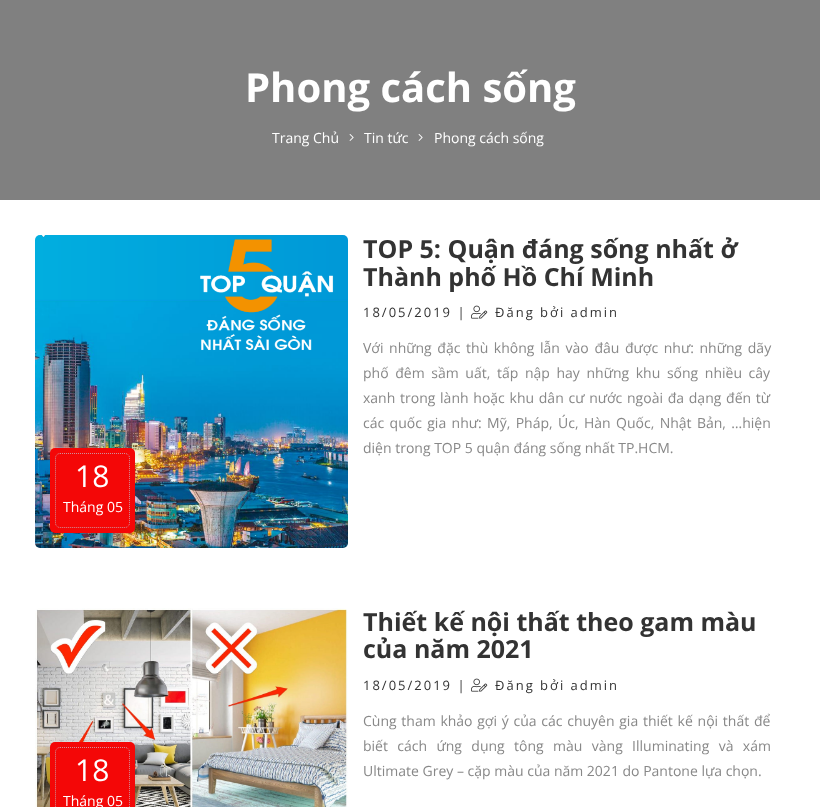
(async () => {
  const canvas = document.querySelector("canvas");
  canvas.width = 820;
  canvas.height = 807;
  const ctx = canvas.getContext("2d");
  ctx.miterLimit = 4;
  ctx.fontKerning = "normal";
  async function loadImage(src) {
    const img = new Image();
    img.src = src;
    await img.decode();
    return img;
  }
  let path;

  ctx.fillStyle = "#ffffff";
  ctx.fillRect(0, 0, 820, 807);
  ctx.fillStyle = "#808080";
  ctx.fillRect(0, 0, 820, 200);
  ctx.drawImage(await loadImage("img/1.png"), 349, 134, 5, 7);
  ctx.drawImage(await loadImage("img/1.png"), 418, 134, 5, 7);
  ctx.drawImage(await loadImage("img/2.png"), 471, 305, 17, 14);
  ctx.drawImage(await loadImage("img/3.png"), 35, 235, 313, 313);
  ctx.fillStyle = "#f40707";
  ctx.beginPath();
  ctx.roundRect(50, 448, 85, 85, 5);
  ctx.fill();
  ctx.drawImage(await loadImage("img/4.png"), 35, 608, 313, 199);
  ctx.beginPath();
  ctx.roundRect(50, 742, 85, 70, 5);
  ctx.fill();
  ctx.drawImage(await loadImage("img/2.png"), 471, 678, 17, 14);
  ctx.font = "bold 40px Open Sans";
  ctx.fillStyle = "#ffffff";
  ctx.fillText("Phong cách sống", 245, 102);
  ctx.font = "14px Open Sans";
  for (const [text, x, y] of [
    ["Trang Chủ", 272, 143],
    ["Tin tức", 364, 143],
    ["Phong cách sống", 434, 143],
  ]) {
    ctx.fillText(text, x, y);
  }
  ctx.font = "bold 25px Open Sans";
  ctx.fillStyle = "#333333";
  ctx.fillText("TOP 5: Quận đáng sống nhất ở", 363, 258);
  ctx.fillText("Thành phố Hồ Chí Minh", 363, 286);
  ctx.letterSpacing = "2px";
  ctx.font = "13px Open Sans";
  ctx.fillText("18/05/2019 |", 363, 317);
  ctx.fillText("Đăng bởi admin", 495, 317);
  ctx.letterSpacing = "0px";
  ctx.wordSpacing = "2px";
  ctx.font = "14px Open Sans";
  ctx.fillStyle = "#888888";
  ctx.fillText("Với những đặc thù không lẫn vào đâu được như: những dãy", 363, 353);
  ctx.wordSpacing = "3px";
  ctx.fillText("phố đêm sầm uất, tấp nập hay những khu sống nhiều cây", 363, 378);
  ctx.wordSpacing = "1.1px";
  ctx.fillText("xanh trong lành hoặc khu dân cư nước ngoài đa dạng đến từ", 363, 403);
  ctx.wordSpacing = "1.75px";
  ctx.fillText("các quốc gia như: Mỹ, Pháp, Úc, Hàn Quốc, Nhật Bản, …hiện", 363, 428);
  ctx.wordSpacing = "0px";
  ctx.fillText("diện trong TOP 5 quận đáng sống nhất TP.HCM.", 363, 453);
  ctx.font = "30px Open Sans";
  ctx.fillStyle = "#ffffff";
  ctx.fillText("18", 75, 487);
  ctx.font = "14px Open Sans";
  ctx.fillText("Tháng 05", 63, 512);
  path = new Path2D("M60 453.5H125C127.5 453.5 129.5 455.5 129.5 458V523C129.5 525.5 127.5 527.5 125 527.5H60C57.5 527.5 55.5 525.5 55.5 523V458C55.5 455.5 57.5 453.5 60 453.5Z");
  ctx.strokeStyle = "#ce8f98";
  ctx.setLineDash([1, 1]);
  ctx.stroke(path);
  ctx.font = "30px Open Sans";
  ctx.fillText("18", 75, 781);
  ctx.font = "14px Open Sans";
  ctx.fillText("Tháng 05", 63, 806);
  path = new Path2D("M60 747.5H125C127.5 747.5 129.5 749.5 129.5 752V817C129.5 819.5 127.5 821.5 125 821.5H60C57.5 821.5 55.5 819.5 55.5 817V752C55.5 749.5 57.5 747.5 60 747.5Z");
  ctx.stroke(path);
  ctx.font = "bold 25px Open Sans";
  ctx.fillStyle = "#333333";
  ctx.fillText("Thiết kế nội thất theo gam màu", 363, 631);
  ctx.fillText("của năm 2021", 363, 658);
  ctx.letterSpacing = "2px";
  ctx.font = "13px Open Sans";
  ctx.fillText("18/05/2019 |", 363, 690);
  ctx.fillText("Đăng bởi admin", 495, 690);
  ctx.letterSpacing = "0px";
  ctx.wordSpacing = "1.1px";
  ctx.font = "14px Open Sans";
  ctx.fillStyle = "#888888";
  ctx.fillText("Cùng tham khảo gợi ý của các chuyên gia thiết kế nội thất để", 363, 726);
  ctx.wordSpacing = "5.75px";
  ctx.fillText("biết cách ứng dụng tông màu vàng Illuminating và xám", 363, 751);
  ctx.wordSpacing = "0px";
  ctx.fillText("Ultimate Grey – cặp màu của năm 2021 do Pantone lựa chọn.", 363, 776);
})();
